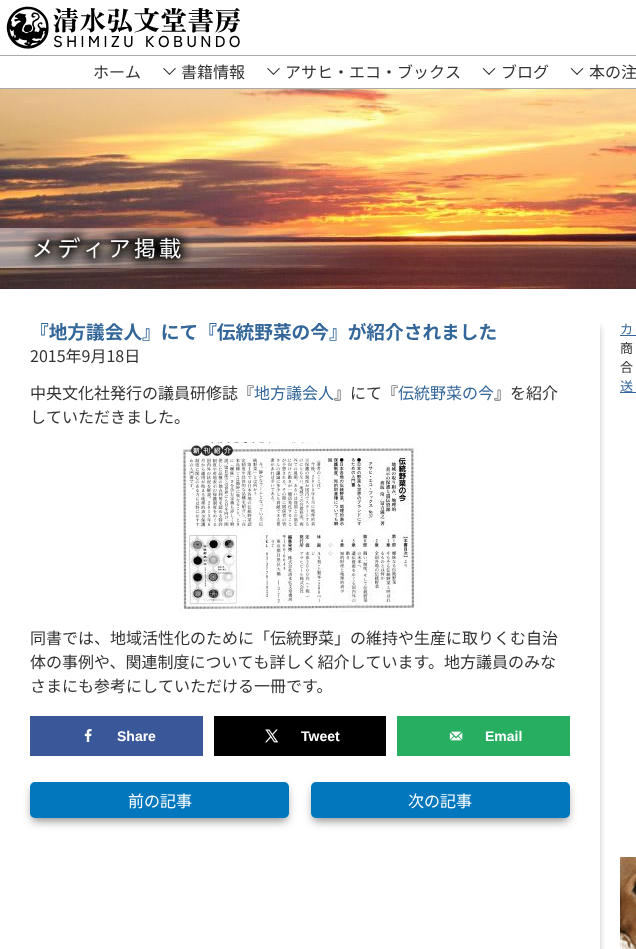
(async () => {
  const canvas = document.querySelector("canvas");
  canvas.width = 636;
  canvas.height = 949;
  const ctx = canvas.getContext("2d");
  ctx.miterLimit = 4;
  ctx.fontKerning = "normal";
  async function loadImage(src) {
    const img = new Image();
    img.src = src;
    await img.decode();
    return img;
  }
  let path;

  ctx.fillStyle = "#ffffff";
  ctx.fillRect(0, 0, 636, 949);
  ctx.drawImage(await loadImage("img/1.png"), 6, 6, 43, 43);
  ctx.drawImage(await loadImage("img/2.png"), 53, 8, 187, 40);
  ctx.fillStyle = "#aaaaaa";
  ctx.fillRect(0, 55, 636, 1);
  ctx.fillRect(0, 88, 636, 1);
  ctx.fillStyle = "#333333";
  path = new Path2D("M175 68L176 68.5L169.5 75L169 74Z");
  ctx.fill(path);
  path = new Path2D("M164 68L170 74L169.5 75L163 68.5Z");
  ctx.fill(path);
  path = new Path2D("M279 68L280 68.5L273.5 75L273 74Z");
  ctx.fill(path);
  path = new Path2D("M268 68L274 74L273.5 75L267 68.5Z");
  ctx.fill(path);
  path = new Path2D("M494.5 68L495.5 68.5L489 75L488.5 74Z");
  ctx.fill(path);
  path = new Path2D("M483.5 68L489.5 74L489 75L482.5 68.5Z");
  ctx.fill(path);
  path = new Path2D("M582.5 68L583.5 68.5L577 75L576.5 74Z");
  ctx.fill(path);
  path = new Path2D("M571.5 68L577.5 74L577 75L570.5 68.5Z");
  ctx.fill(path);
  ctx.drawImage(await loadImage("img/3.png"), 0, 89, 636, 200);
  ctx.save();
  ctx.beginPath();
  ctx.rect(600, 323, 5, 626);
  ctx.clip();
  ctx.fillStyle = "rgba(64, 64, 64, 0.5)";
  ctx.filter = "blur(4px)";
  ctx.beginPath();
  ctx.rect(14, 327, 584, 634);
  ctx.fill();
  ctx.filter = "none";
  ctx.restore();
  ctx.drawImage(await loadImage("img/4.png"), 180, 442, 240, 170);
  ctx.fillStyle = "#3a579a";
  ctx.fillRect(30, 716, 173, 40);
  ctx.drawImage(await loadImage("img/5.png"), 84, 729, 8, 13);
  ctx.fillStyle = "#000000";
  ctx.fillRect(214, 716, 172, 40);
  ctx.drawImage(await loadImage("img/6.png"), 265, 729, 14, 14);
  ctx.fillStyle = "#27ae60";
  ctx.fillRect(397, 716, 173, 40);
  ctx.drawImage(await loadImage("img/7.png"), 449, 731, 14, 10);
  ctx.fillStyle = "rgba(32, 32, 32, 0.5)";
  ctx.filter = "blur(5px)";
  ctx.beginPath();
  ctx.roundRect(32, 789, 255, 32, 3);
  ctx.fill();
  ctx.filter = "none";
  ctx.fillStyle = "#0277bd";
  ctx.beginPath();
  ctx.roundRect(30, 782, 259, 36, 5);
  ctx.fill();
  ctx.fillStyle = "rgba(32, 32, 32, 0.5)";
  ctx.filter = "blur(5px)";
  ctx.beginPath();
  ctx.roundRect(313, 789, 255, 32, 3);
  ctx.fill();
  ctx.filter = "none";
  ctx.fillStyle = "#0277bd";
  ctx.beginPath();
  ctx.roundRect(311, 782, 259, 36, 5);
  ctx.fill();
  ctx.fillStyle = "#336699";
  ctx.fillRect(620, 335, 16, 1);
  ctx.fillRect(620, 392, 16, 1);
  ctx.drawImage(await loadImage("img/8.png"), 620, 857, 16, 92);
  ctx.font = "16px Noto Sans JP";
  ctx.fillStyle = "#333333";
  for (const [text, x, y] of [
    ["ホーム", 93, 78],
    ["書籍情報", 181, 78],
    ["アサヒ・エコ・ブックス", 285, 78],
    ["ブログ", 501, 78],
    ["本の注", 589, 78],
  ]) {
    ctx.fillText(text, x, y);
  }
  ctx.font = "bold 18.7px Noto Sans JP";
  ctx.fillStyle = "#336699";
  ctx.fillText("『地方議会人』にて『伝統野菜の今』が紹介されました", 30, 339);
  ctx.font = "16px Noto Sans JP";
  ctx.fillStyle = "#333333";
  ctx.fillText("2015年9月18日", 30, 362);
  ctx.fillText("中央文化社発行の議員研修誌『", 30, 399);
  ctx.fillStyle = "#336699";
  ctx.fillText("地方議会人", 254, 399);
  ctx.fillStyle = "#333333";
  ctx.fillText("』にて『", 334, 399);
  ctx.fillStyle = "#336699";
  ctx.fillText("伝統野菜の今", 398, 399);
  ctx.fillStyle = "#333333";
  for (const [text, x, y] of [
    ["』を紹介", 494, 399],
    ["していただきました。", 30, 423],
    ["同書では、地域活性化のために「伝統野菜」の維持や生産に取りくむ自治", 30, 644],
    ["体の事例や、関連制度についても詳しく紹介しています。地方議員のみな", 30, 668],
    ["さまにも参考にしていただける一冊です。", 30, 692],
  ]) {
    ctx.fillText(text, x, y);
  }
  ctx.font = "bold 14px Liberation Sans";
  ctx.fillStyle = "#ffffff";
  for (const [text, x, y] of [
    ["Share", 117, 741],
    ["Tweet", 301, 741],
    ["Email", 485, 741],
  ]) {
    ctx.fillText(text, x, y);
  }
  ctx.font = "16px Noto Sans JP";
  ctx.fillText("前の記事", 128, 807);
  ctx.fillText("次の記事", 408, 807);
  ctx.font = "13px Noto Sans JP";
  ctx.fillStyle = "#336699";
  ctx.fillText("カ", 620, 334);
  ctx.fillStyle = "#333333";
  ctx.fillText("商", 620, 353);
  ctx.fillText("合", 620, 372);
  ctx.fillStyle = "#336699";
  ctx.fillText("送", 620, 391);
})();
